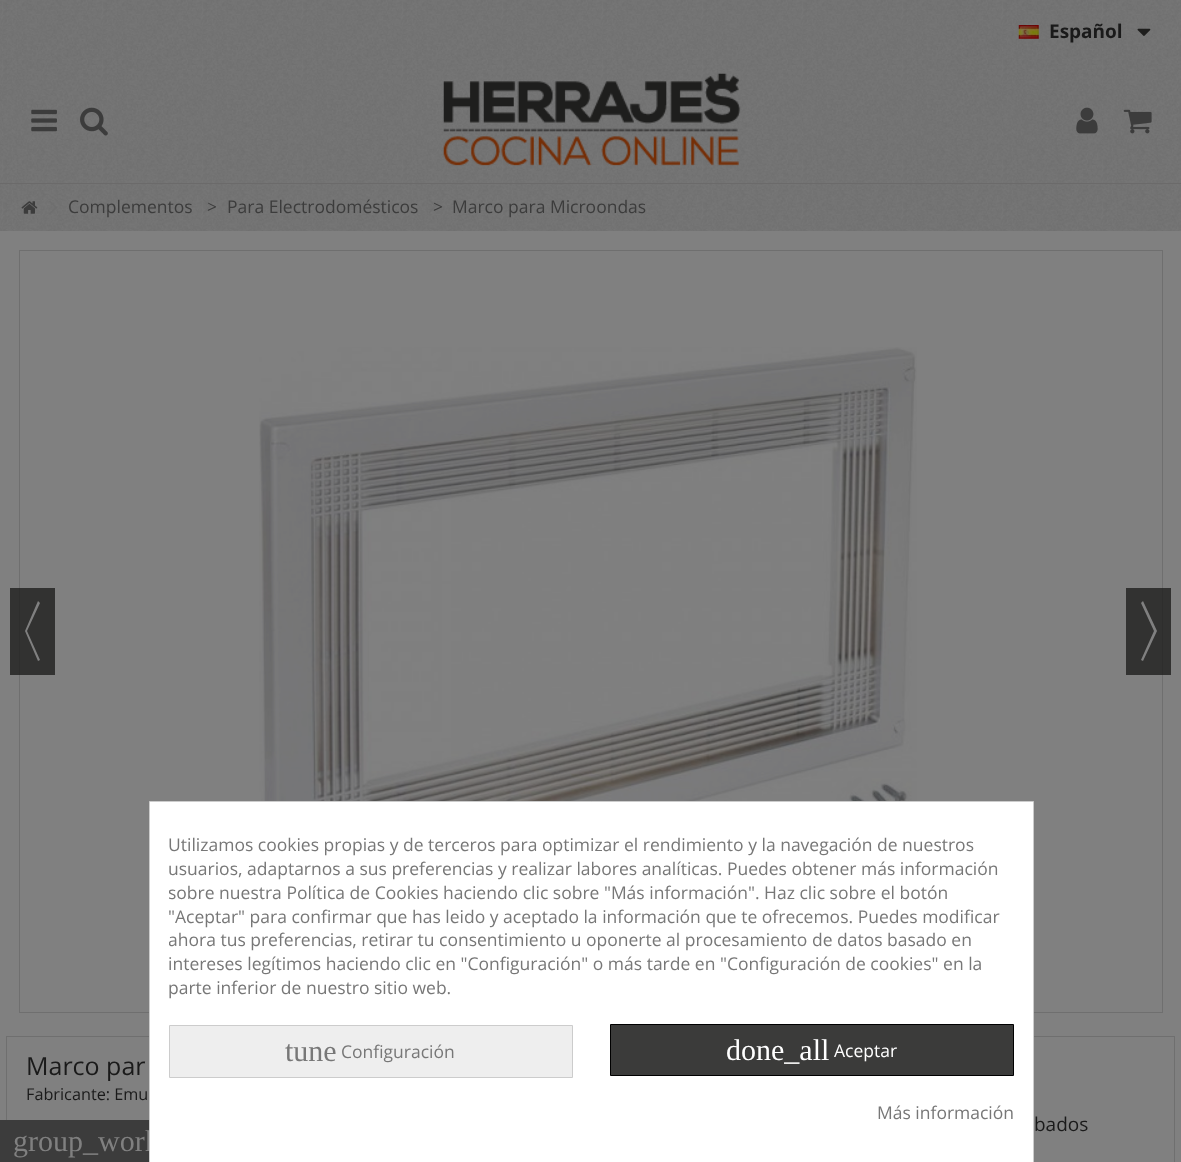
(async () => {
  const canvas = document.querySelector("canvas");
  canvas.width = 1181;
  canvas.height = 1162;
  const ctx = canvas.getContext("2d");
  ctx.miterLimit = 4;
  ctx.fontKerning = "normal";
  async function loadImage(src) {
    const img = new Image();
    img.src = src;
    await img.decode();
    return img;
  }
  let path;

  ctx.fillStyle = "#ffffff";
  ctx.fillRect(0, 0, 1181, 1162);
  ctx.drawImage(await loadImage("img/1.png"), 0, 0, 1181, 231);
  ctx.drawImage(await loadImage("img/2.png"), 1018, 25, 21, 14);
  ctx.drawImage(await loadImage("img/3.png"), 1137, 28, 14, 8);
  ctx.drawImage(await loadImage("img/4.png"), 0, 58, 1181, 125);
  ctx.fillStyle = "#6b6a6a";
  ctx.fillRect(0, 183, 1181, 1);
  ctx.drawImage(await loadImage("img/5.png"), 31, 109, 26, 23);
  ctx.drawImage(await loadImage("img/6.png"), 80, 107, 28, 29);
  ctx.drawImage(await loadImage("img/7.png"), 443, 73, 298, 93);
  ctx.drawImage(await loadImage("img/8.png"), 1076, 107, 22, 27);
  ctx.drawImage(await loadImage("img/9.png"), 1123, 109, 29, 25);
  ctx.drawImage(await loadImage("img/10.png"), 21, 201, 17, 13);
  ctx.fillStyle = "#6f6f6f";
  path = new Path2D("M50 200.5L57 207.5L56 208.5L49 201.5Z");
  ctx.fill(path);
  path = new Path2D("M56 206.5L57 207.5L50 214.5L49 213.5Z");
  ctx.fill(path);
  ctx.fillStyle = "#808080";
  ctx.fillRect(0, 231, 1181, 931);
  ctx.strokeStyle = "#6f6f6f";
  ctx.strokeRect(19.5, 250.5, 1143, 762);
  ctx.fillStyle = "rgba(30, 30, 29, 0.8)";
  ctx.fillRect(10, 588, 45, 87);
  ctx.fillStyle = "#808080";
  path = new Path2D("M27 631L40 603L38 601L25 631ZM38 661L40 660L27 631H25Z");
  ctx.fill(path);
  ctx.drawImage(await loadImage("img/11.png"), 259, 347, 658, 454);
  ctx.fillStyle = "rgba(30, 30, 29, 0.8)";
  ctx.fillRect(1126, 588, 45, 87);
  ctx.fillStyle = "#808080";
  path = new Path2D("M1154 631L1141 603L1143 601L1157 631ZM1143 661L1141 660L1154 631H1157Z");
  ctx.fill(path);
  ctx.strokeRect(6.5, 1036.5, 1168, 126);
  ctx.fillStyle = "#3c3c3c";
  ctx.fillRect(0, 1120, 149, 42);
  ctx.font = "bold 19px Open Sans";
  ctx.fillStyle = "#1a1a1a";
  ctx.fillText("Español", 1049, 38);
  ctx.font = "17.5px Open Sans";
  ctx.fillStyle = "#3c3c3c";
  ctx.fillText("Complementos", 68, 213);
  ctx.fillText(">", 207, 213);
  ctx.fillStyle = "#6f6f6f";
  path = new Path2D("M203.5 199L211 206L210 207L203 200Z");
  ctx.fill(path);
  path = new Path2D("M210 205.5L211 206L203.5 213.5L203 212.5Z");
  ctx.fill(path);
  ctx.fillStyle = "#3c3c3c";
  ctx.fillText("Para Electrodomésticos", 227, 213);
  ctx.fillText(">", 433, 213);
  ctx.fillStyle = "#6f6f6f";
  path = new Path2D("M429.5 199L436.5 206L435.5 207L428.5 200Z");
  ctx.fill(path);
  path = new Path2D("M435.5 205.5L436.5 206L429.5 213.5L428.5 212.5Z");
  ctx.fill(path);
  ctx.fillStyle = "#3c3c3c";
  ctx.fillText("Marco para Microondas", 452, 213);
  ctx.font = "25px Open Sans";
  ctx.fillStyle = "#1a1a1a";
  ctx.fillText("Marco par", 26, 1075);
  ctx.font = "16.25px Open Sans";
  ctx.fillText("Fabricante: Emu", 26, 1100);
  ctx.font = "19px Open Sans";
  ctx.fillText("bados", 1034, 1131);
  ctx.font = "30px Liberation Serif";
  ctx.fillStyle = "#808080";
  ctx.fillText("group_work", 13, 1151);
  ctx.fillStyle = "#ffffff";
  ctx.beginPath();
  ctx.rect(149.5, 801.5, 884, 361);
  ctx.fill();
  ctx.strokeStyle = "#cccccc";
  ctx.stroke();
  ctx.font = "17.5px Open Sans";
  ctx.fillStyle = "#777777";
  ctx.fillText("Más información", 877, 1119);
  ctx.fillStyle = "#eeeeee";
  ctx.beginPath();
  ctx.rect(169.5, 1025.5, 403, 52);
  ctx.fill();
  ctx.stroke();
  ctx.fillStyle = "#777777";
  ctx.fillText("Configuración", 341, 1058);
  ctx.font = "30px Liberation Serif";
  ctx.fillText("tune", 285, 1061);
  ctx.fillStyle = "#3b3b3a";
  ctx.beginPath();
  ctx.rect(610.5, 1024.5, 403, 51);
  ctx.fill();
  ctx.strokeStyle = "#000000";
  ctx.stroke();
  ctx.font = "17.5px Open Sans";
  ctx.fillStyle = "#ffffff";
  ctx.fillText("Aceptar", 834, 1057);
  ctx.font = "30px Liberation Serif";
  ctx.fillText("done_all", 726, 1060);
  ctx.font = "17.5px Open Sans";
  ctx.fillStyle = "#777777";
  ctx.fillText("parte inferior de nuestro sitio web.", 168, 994);
  ctx.fillText("intereses legítimos haciendo clic en \"Configuración\" o más tarde en \"Configuración de cookies\" en la", 168, 970);
  ctx.save();
  ctx.beginPath();
  ctx.rect(169, 833, 845, 166);
  ctx.clip();
  ctx.fillText("ahora tus preferencias, retirar tu consentimiento u oponerte al procesamiento de datos basado en", 168, 946);
  ctx.restore();
  ctx.fillText("\"Aceptar\" para confirmar que has leido y aceptado la información que te ofrecemos. Puedes modificar", 168, 923);
  ctx.save();
  ctx.beginPath();
  ctx.rect(169, 833, 845, 166);
  ctx.clip();
  ctx.fillText("sobre nuestra Política de Cookies haciendo clic sobre \"Más información\". Haz clic sobre el botón", 168, 899);
  ctx.restore();
  ctx.fillText("usuarios, adaptarnos a sus preferencias y realizar labores analíticas. Puedes obtener más información", 168, 875);
  ctx.fillText("Utilizamos cookies propias y de terceros para optimizar el rendimiento y la navegación de nuestros", 168, 851);
})();
